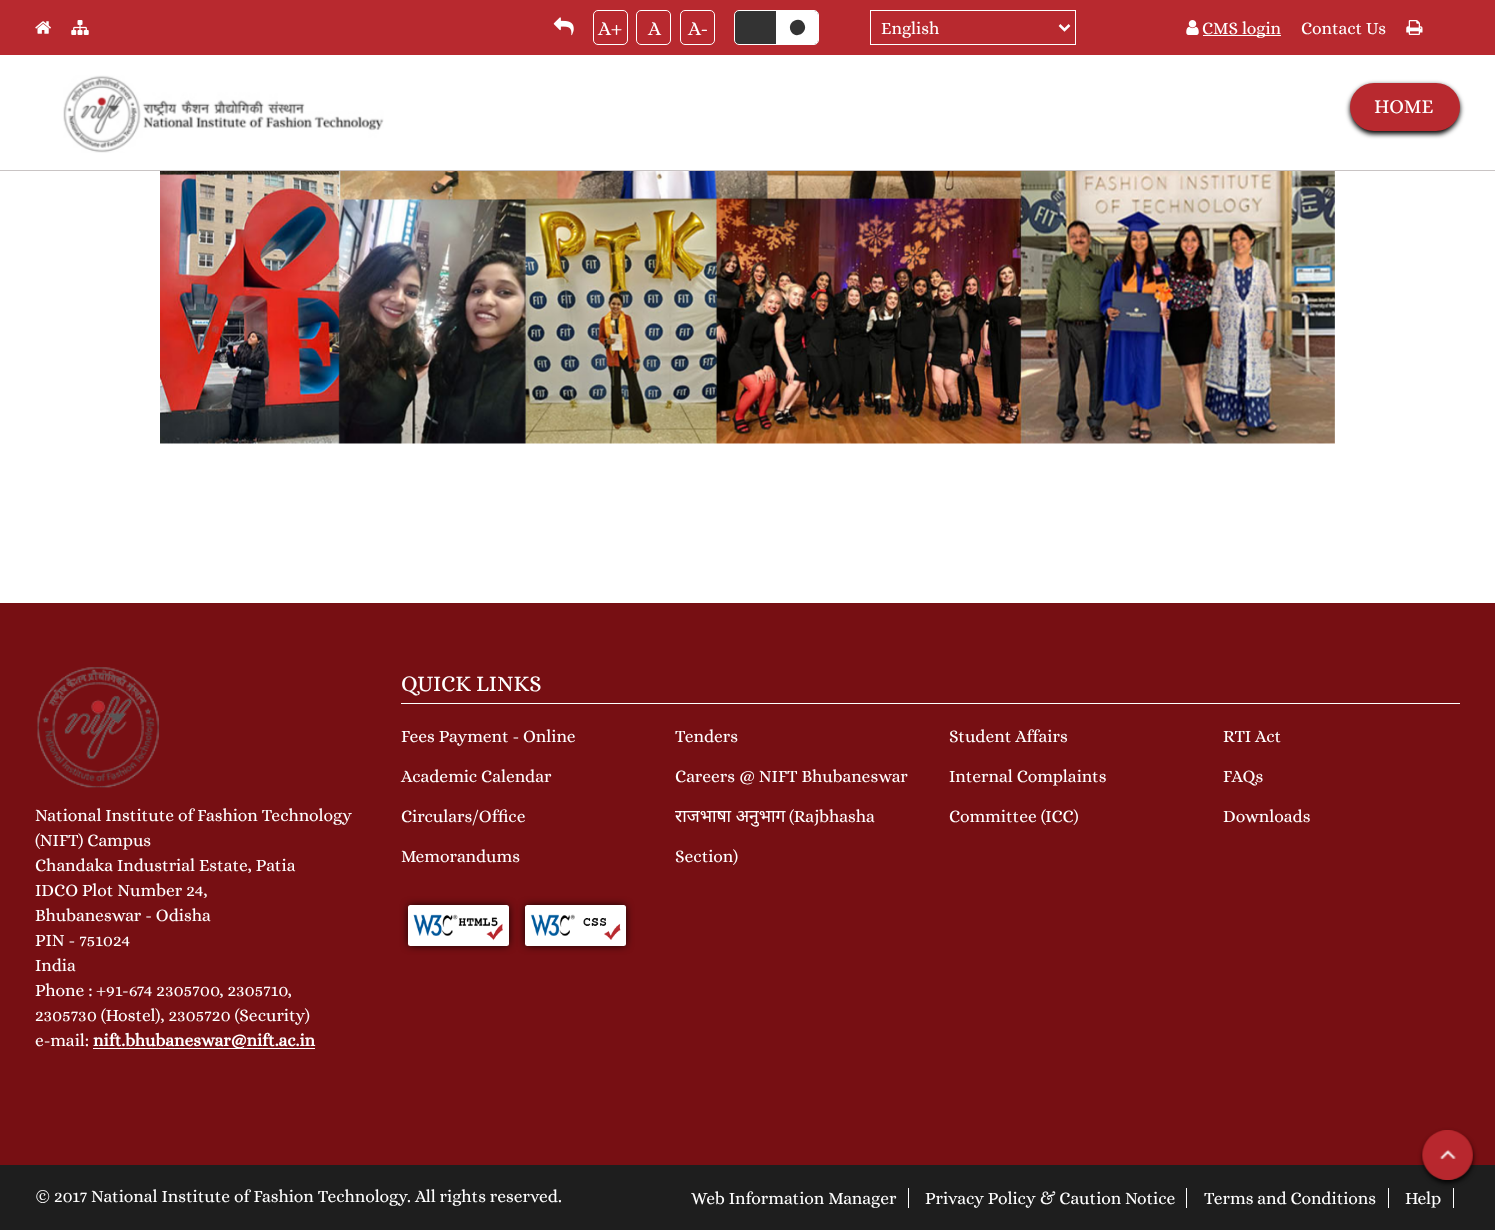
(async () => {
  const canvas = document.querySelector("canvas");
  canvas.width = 1495;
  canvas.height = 1230;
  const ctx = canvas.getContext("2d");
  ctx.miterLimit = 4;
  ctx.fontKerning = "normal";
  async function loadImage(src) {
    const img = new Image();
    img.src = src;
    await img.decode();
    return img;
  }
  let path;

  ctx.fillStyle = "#ffffff";
  ctx.fillRect(0, 0, 1495, 1230);
  ctx.fillStyle = "#b8292f";
  ctx.fillRect(0, 0, 1495, 55);
  ctx.drawImage(await loadImage("img/1.png"), 35, 21, 16, 13);
  ctx.drawImage(await loadImage("img/2.png"), 71, 20, 18, 15);
  ctx.drawImage(await loadImage("img/3.png"), 553, 17, 21, 19);
  ctx.beginPath();
  ctx.roundRect(593.5, 10.5, 34, 34, 4.5);
  ctx.strokeStyle = "#ffffff";
  ctx.stroke();
  ctx.beginPath();
  ctx.roundRect(636.5, 10.5, 34, 34, 4.5);
  ctx.stroke();
  ctx.beginPath();
  ctx.roundRect(680.5, 10.5, 34, 34, 4.5);
  ctx.stroke();
  ctx.fillStyle = "#333333";
  ctx.beginPath();
  ctx.roundRect(734.5, 10.5, 84, 34, 4.5);
  ctx.fill();
  ctx.stroke();
  ctx.fillStyle = "#ffffff";
  ctx.beginPath();
  ctx.roundRect(776, 11, 42, 33, [0, 4, 4, 0]);
  ctx.fill();
  ctx.fillStyle = "#333333";
  path = new Path2D("M804 23.5C809 32 796 40 791 31.5C786 23 799 15 804 23.5Z");
  ctx.fill(path);
  ctx.strokeRect(870.5, 10.5, 205, 34);
  path = new Path2D("M1059.5 25L1064.5 30L1069.5 25");
  ctx.lineWidth = 2.5;
  ctx.stroke(path);
  ctx.drawImage(await loadImage("img/4.png"), 1186, 20, 13, 15);
  ctx.fillStyle = "#ffffff";
  ctx.fillRect(1203, 35, 78, 1);
  ctx.drawImage(await loadImage("img/5.png"), 1406, 20, 17, 15);
  ctx.fillStyle = "#c9c4c4";
  ctx.fillRect(0, 170, 1495, 1);
  ctx.drawImage(await loadImage("img/6.png"), 63, 75, 321, 78);
  ctx.fillStyle = "#000000";
  ctx.filter = "blur(2.5px)";
  ctx.beginPath();
  ctx.roundRect(1350, 85, 110, 49, 24.5);
  ctx.fill();
  ctx.filter = "none";
  ctx.fillStyle = "#b8292f";
  ctx.beginPath();
  ctx.roundRect(1350, 83, 110, 48, 24);
  ctx.fill();
  ctx.drawImage(await loadImage("img/7.png"), 160, 171, 1175, 273);
  ctx.fillStyle = "#770f13";
  ctx.fillRect(0, 603, 1495, 562);
  ctx.fillStyle = "#ffffff";
  ctx.fillRect(401, 703, 1059, 1);
  ctx.drawImage(await loadImage("img/8.png"), 37, 667, 122, 121);
  ctx.fillRect(93, 1048, 222, 1);
  ctx.fillStyle = "#000000";
  ctx.filter = "blur(4.5px)";
  ctx.beginPath();
  ctx.roundRect(409, 906, 99, 39, 1);
  ctx.fill();
  ctx.filter = "none";
  ctx.fillStyle = "#ffffff";
  ctx.beginPath();
  ctx.roundRect(408, 905, 101, 41, 2.5);
  ctx.fill();
  ctx.drawImage(await loadImage("img/9.png"), 413, 914, 90, 27);
  ctx.fillStyle = "#000000";
  ctx.filter = "blur(4.5px)";
  ctx.beginPath();
  ctx.roundRect(526, 906, 99, 39, 1);
  ctx.fill();
  ctx.filter = "none";
  ctx.fillStyle = "#ffffff";
  ctx.beginPath();
  ctx.roundRect(525, 905, 101, 41, 2.5);
  ctx.fill();
  ctx.drawImage(await loadImage("img/10.png"), 530, 914, 91, 26);
  for (const [x, y, w, h, color] of [
    [0, 1165, 1495, 65, "#1e1e1e"],
    [908, 1188, 1, 20, "#ffffff"],
    [1186, 1188, 1, 20, "#ffffff"],
    [1388, 1188, 1, 20, "#ffffff"],
    [1453, 1188, 1, 20, "#ffffff"],
  ]) {
    ctx.fillStyle = color;
    ctx.fillRect(x, y, w, h);
  }
  ctx.save();
  path = new Path2D("M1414 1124H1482V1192H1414ZM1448 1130C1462 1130 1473 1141 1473 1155C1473 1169 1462 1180 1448 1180C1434 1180 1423 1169 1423 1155C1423 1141 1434 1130 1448 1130Z");
  ctx.clip(path, "evenodd");
  ctx.fillStyle = "rgba(0, 0, 0, 0.9)";
  ctx.filter = "blur(2.5px)";
  ctx.beginPath();
  ctx.roundRect(1423, 1133, 50, 50, 25);
  ctx.fill();
  ctx.filter = "none";
  ctx.restore();
  ctx.drawImage(await loadImage("img/11.png"), 1422, 1130, 51, 50);
  ctx.drawImage(await loadImage("img/12.png"), 1422, 1130, 51, 50);
  ctx.font = "20px Alice";
  for (const [text, x, y] of [
    ["A+", 598, 35],
    ["A", 648, 35],
    ["A-", 688, 35],
  ]) {
    ctx.fillText(text, x, y);
  }
  ctx.font = "17.5px Alice";
  for (const [text, x, y] of [
    ["English", 881, 34],
    ["CMS login", 1202, 34],
    ["Contact Us", 1301, 34],
  ]) {
    ctx.fillText(text, x, y);
  }
  ctx.font = "20px Alice";
  ctx.fillText("HOME", 1374, 113);
  ctx.font = "22.5px Alice";
  ctx.fillText("QUICK LINKS", 401, 691);
  ctx.font = "17.5px Alice";
  for (const [text, x, y] of [
    ["Fees Payment - Online", 401, 742],
    ["Academic Calendar", 401, 782],
    ["Circulars/Office", 401, 822],
    ["Memorandums", 401, 862],
    ["Tenders", 675, 742],
    ["Careers @ NIFT Bhubaneswar", 675, 782],
  ]) {
    ctx.fillText(text, x, y);
  }
  ctx.font = "17.5px Noto Sans";
  ctx.fillText("राजभाषा अनुभाग", 675, 822);
  ctx.font = "17.5px Alice";
  for (const [text, x, y] of [
    ["(Rajbhasha", 789, 822],
    ["Section)", 675, 862],
    ["Student Affairs", 949, 742],
    ["Internal Complaints", 949, 782],
    ["Committee (ICC)", 949, 822],
    ["RTI Act", 1223, 742],
    ["FAQs", 1223, 782],
    ["Downloads", 1223, 822],
    ["National Institute of Fashion Technology", 35, 821],
    ["(NIFT) Campus", 35, 846],
    ["Chandaka Industrial Estate, Patia", 35, 871],
    ["IDCO Plot Number 24,", 35, 896],
    ["Bhubaneswar - Odisha", 35, 921],
    ["PIN - 751024", 35, 946],
    ["India", 35, 971],
    ["Phone : +91-674 2305700, 2305710,", 35, 996],
    ["2305730 (Hostel), 2305720 (Security)", 35, 1021],
    ["e-mail:", 35, 1046],
  ]) {
    ctx.fillText(text, x, y);
  }
  ctx.font = "bold 17.5px Alice";
  ctx.fillText("nift.bhubaneswar@nift.ac.in", 93, 1046);
  ctx.font = "17.5px Alice";
  for (const [text, x, y] of [
    ["© 2017 National Institute of Fashion Technology. All rights reserved.", 35, 1202],
    ["Web Information Manager", 691, 1204],
    ["Privacy Policy & Caution Notice", 925, 1204],
    ["Terms and Conditions", 1204, 1204],
    ["Help", 1405, 1204],
  ]) {
    ctx.fillText(text, x, y);
  }
})();
